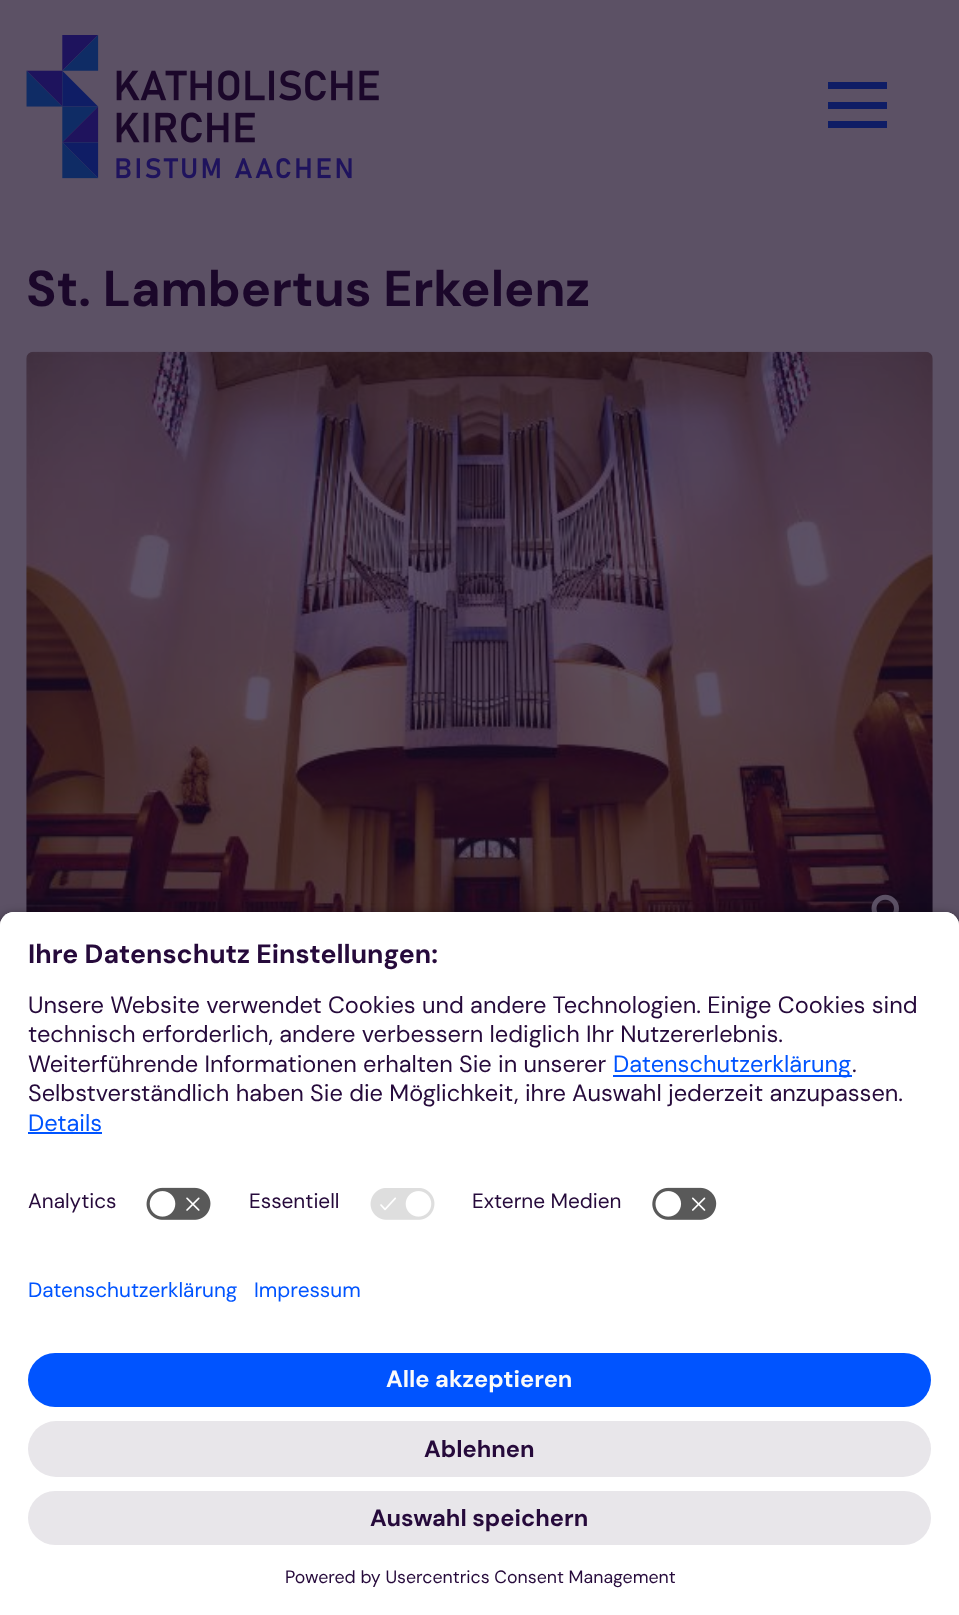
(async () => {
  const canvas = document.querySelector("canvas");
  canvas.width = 959;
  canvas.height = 1615;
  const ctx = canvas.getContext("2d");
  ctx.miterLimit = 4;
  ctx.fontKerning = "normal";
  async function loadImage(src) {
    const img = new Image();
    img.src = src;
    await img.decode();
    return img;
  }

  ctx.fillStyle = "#5c5165";
  ctx.fillRect(0, 0, 959, 1615);
  ctx.drawImage(await loadImage("img/1.png"), 26, 35, 353, 144);
  for (const [x, y, w, h, color] of [
    [828, 102, 59, 7, "#0f1d65"],
    [828, 82, 59, 7, "#0f1d65"],
    [828, 121, 59, 7, "#0f1d65"],
  ]) {
    ctx.fillStyle = color;
    ctx.fillRect(x, y, w, h);
  }
  ctx.drawImage(await loadImage("img/2.png"), 26, 351, 907, 561);
  ctx.drawImage(await loadImage("img/3.png"), 871, 894, 28, 18);
  ctx.fillStyle = "rgba(0, 0, 0, 0.8)";
  ctx.filter = "blur(6px)";
  ctx.beginPath();
  ctx.roundRect(0, 917, 959, 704, 14);
  ctx.fill();
  ctx.filter = "none";
  ctx.fillStyle = "#ffffff";
  ctx.beginPath();
  ctx.roundRect(0, 912, 959, 339, [14, 14, 0, 0]);
  ctx.fill();
  ctx.beginPath();
  ctx.roundRect(0, 912, 959, 262, [14, 14, 0, 0]);
  ctx.fill();
  ctx.fillStyle = "#0054ff";
  ctx.fillRect(613, 1075, 239, 2);
  ctx.fillRect(28, 1132, 74, 2);
  ctx.drawImage(await loadImage("img/4.png"), 146, 1187, 65, 33);
  ctx.drawImage(await loadImage("img/5.png"), 370, 1188, 65, 32);
  ctx.drawImage(await loadImage("img/6.png"), 652, 1187, 65, 33);
  ctx.fillStyle = "#ffffff";
  ctx.fillRect(0, 1251, 959, 364);
  ctx.fillStyle = "#0054ff";
  ctx.beginPath();
  ctx.roundRect(28, 1353, 903, 54, 27);
  ctx.fill();
  ctx.fillStyle = "#e8e6ea";
  ctx.beginPath();
  ctx.roundRect(28, 1421, 903, 56, 28);
  ctx.fill();
  ctx.beginPath();
  ctx.roundRect(28, 1491, 903, 54, 27);
  ctx.fill();
  ctx.font = "bold 50.4px DM Sans";
  ctx.fillStyle = "#1b072a";
  ctx.fillText("St. Lambertus Erkelenz", 26, 306);
  ctx.font = "bold 26.6px DM Sans";
  ctx.fillStyle = "#260a3b";
  ctx.fillText("Ihre Datenschutz Einstellungen:", 28, 963);
  ctx.font = "23.6px DM Sans";
  for (const [text, x, y] of [
    ["Unsere Website verwendet Cookies und andere Technologien. Einige Cookies sind", 28, 1013],
    ["technisch erforderlich, andere verbessern lediglich Ihr Nutzererlebnis.", 28, 1042],
    ["Weiterführende Informationen erhalten Sie in unserer", 28, 1072],
  ]) {
    ctx.fillText(text, x, y);
  }
  ctx.fillStyle = "#0054ff";
  ctx.fillText("Datenschutzerklärung", 613, 1072);
  ctx.fillStyle = "#260a3b";
  ctx.fillText(".", 852, 1072);
  ctx.fillText("Selbstverständlich haben Sie die Möglichkeit, ihre Auswahl jederzeit anzupassen.", 28, 1101);
  ctx.fillStyle = "#0054ff";
  ctx.fillText("Details", 28, 1131);
  ctx.font = "20.75px DM Sans";
  ctx.fillStyle = "#260a3b";
  for (const [text, x, y] of [
    ["Analytics", 28, 1208],
    ["Essentiell", 249, 1208],
    ["Externe Medien", 472, 1208],
  ]) {
    ctx.fillText(text, x, y);
  }
  ctx.fillStyle = "#0054ff";
  ctx.fillText("Datenschutzerklärung", 28, 1297);
  ctx.fillText("Impressum", 254, 1297);
  ctx.font = "bold 23.6px DM Sans";
  ctx.fillStyle = "#fafafa";
  ctx.fillText("Alle akzeptieren", 386, 1387);
  ctx.fillStyle = "#260a3b";
  ctx.fillText("Ablehnen", 424, 1457);
  ctx.fillText("Auswahl speichern", 370, 1526);
  ctx.font = "17.75px DM Sans";
  ctx.fillText("Powered by Usercentrics Consent Management", 285, 1583);
})();
